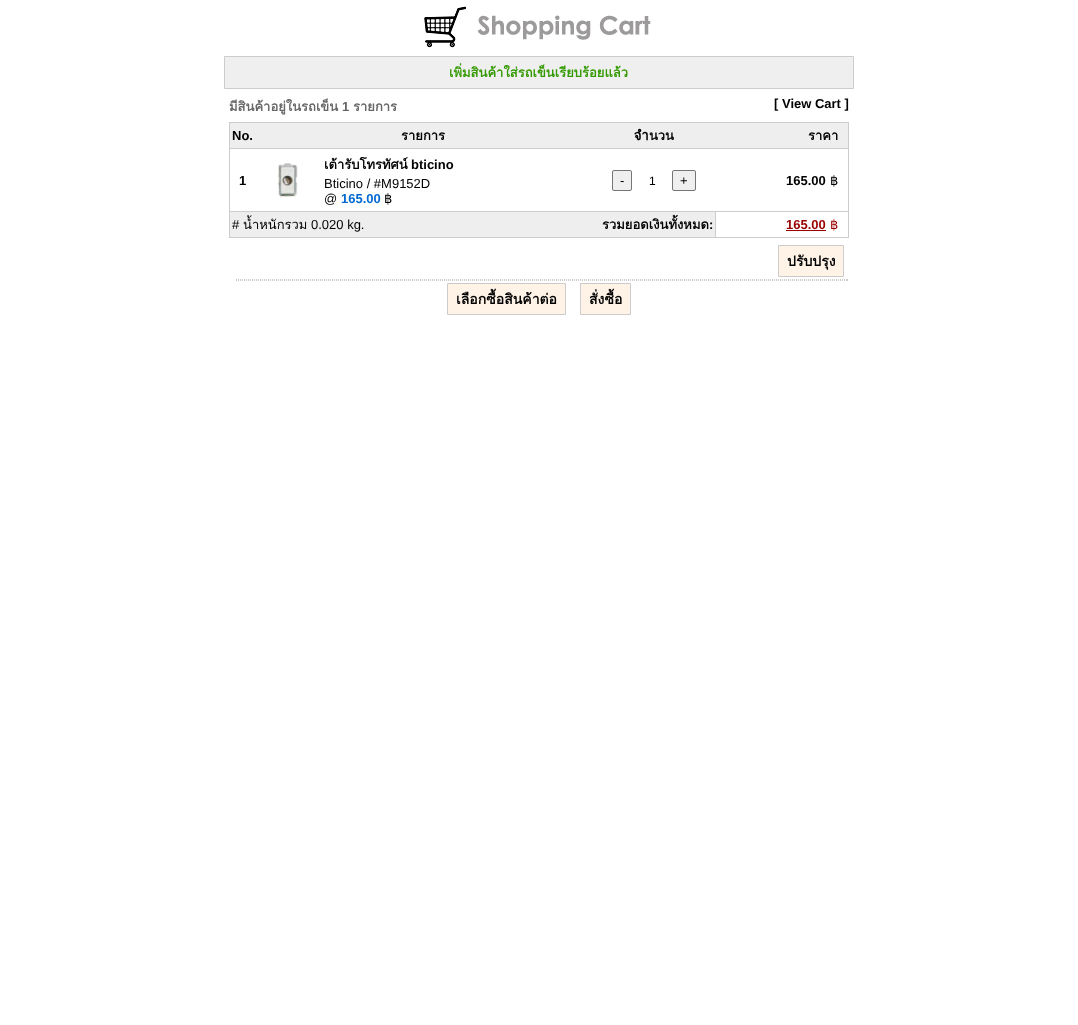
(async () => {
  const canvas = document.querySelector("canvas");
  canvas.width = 1078;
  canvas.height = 1025;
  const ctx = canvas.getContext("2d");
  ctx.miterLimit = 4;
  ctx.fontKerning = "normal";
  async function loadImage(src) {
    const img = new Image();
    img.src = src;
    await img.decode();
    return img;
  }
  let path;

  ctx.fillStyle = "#ffffff";
  ctx.fillRect(0, 0, 1078, 1025);
  ctx.drawImage(await loadImage("img/1.png"), 424, 6, 227, 42);
  ctx.fillStyle = "#efefef";
  ctx.beginPath();
  ctx.rect(224.5, 56.5, 629, 32);
  ctx.fill();
  ctx.strokeStyle = "#cccccc";
  ctx.stroke();
  ctx.strokeRect(229.5, 122.5, 619, 115);
  ctx.fillStyle = "#eeeeee";
  ctx.fillRect(230, 123, 618, 25);
  ctx.fillStyle = "#cccccc";
  ctx.fillRect(230, 148, 618, 1);
  ctx.drawImage(await loadImage("img/2.png"), 278, 163, 20, 34);
  ctx.fillStyle = "#efefef";
  ctx.beginPath();
  ctx.roundRect(612.5, 170.5, 19, 20, 1.5);
  ctx.fill();
  ctx.strokeStyle = "#767676";
  ctx.stroke();
  ctx.beginPath();
  ctx.roundRect(672.5, 170.5, 23, 20, 1.5);
  ctx.fill();
  ctx.stroke();
  for (const [x, y, w, h, color] of [
    [230, 212, 485, 25, "#eeeeee"],
    [230, 211, 618, 1, "#cccccc"],
    [715, 211, 1, 26, "#cccccc"],
    [786, 230, 40, 1, "#990000"],
  ]) {
    ctx.fillStyle = color;
    ctx.fillRect(x, y, w, h);
  }
  ctx.fillStyle = "#fff3e8";
  ctx.beginPath();
  ctx.rect(778.5, 245.5, 65, 31);
  ctx.fill();
  ctx.strokeStyle = "#cccccc";
  ctx.stroke();
  path = new Path2D("M236 279.5H848");
  ctx.setLineDash([1, 1]);
  ctx.stroke(path);
  ctx.fillStyle = "#cccccc";
  ctx.fillRect(847, 279, 1, 2);
  path = new Path2D("M236 280.5H848");
  ctx.stroke(path);
  ctx.fillStyle = "#fff3e8";
  ctx.beginPath();
  ctx.rect(447.5, 283.5, 118, 31);
  ctx.fill();
  ctx.setLineDash([]);
  ctx.stroke();
  ctx.beginPath();
  ctx.rect(580.5, 283.5, 50, 31);
  ctx.fill();
  ctx.stroke();
  ctx.font = "bold 13px Loma";
  ctx.fillStyle = "#339900";
  ctx.fillText("เพิ่มสินค้าใส่รถเข็นเรียบร้อยแล้ว", 449, 77);
  ctx.fillStyle = "#666666";
  ctx.fillText("มีสินค้าอยู่ในรถเข็น", 229, 111);
  ctx.font = "bold 13px Liberation Sans";
  ctx.fillText("1", 342, 111);
  ctx.font = "bold 13px Loma";
  ctx.fillText("รายการ", 353, 111);
  ctx.font = "bold 13px Liberation Sans";
  ctx.fillStyle = "#000000";
  ctx.fillText("[ View Cart ]", 774, 108);
  ctx.fillText("No.", 232, 140);
  ctx.font = "bold 13px Loma";
  for (const [text, x, y] of [
    ["รายการ", 401, 140],
    ["จำนวน", 634, 140],
    ["ราคา", 808, 140],
  ]) {
    ctx.fillText(text, x, y);
  }
  ctx.font = "bold 13px Liberation Sans";
  ctx.fillText("1", 239, 185);
  ctx.font = "bold 13px Loma";
  ctx.fillText("เต้ารับโทรทัศน์", 324, 169);
  ctx.font = "bold 13px Liberation Sans";
  ctx.fillText("bticino", 411, 169);
  ctx.font = "13px Liberation Sans";
  ctx.fillText("Bticino / #M9152D", 324, 188);
  ctx.fillText("@", 324, 203);
  ctx.font = "bold 13px Liberation Sans";
  ctx.fillStyle = "#0069d2";
  ctx.fillText("165.00", 341, 203);
  ctx.font = "13px DejaVu Sans";
  ctx.fillStyle = "#000000";
  ctx.fillText("฿", 384, 203);
  ctx.font = "13px Liberation Sans";
  ctx.fillText("-", 620, 185);
  ctx.font = "12px Liberation Sans";
  ctx.fillText("1", 649, 185);
  ctx.font = "13px Liberation Sans";
  ctx.fillText("+", 680, 185);
  ctx.font = "bold 13px Liberation Sans";
  ctx.fillText("165.00", 786, 185);
  ctx.font = "13px DejaVu Sans";
  ctx.fillText("฿", 830, 185);
  ctx.font = "13px Liberation Sans";
  ctx.fillText("#", 232, 229);
  ctx.font = "13px Loma";
  ctx.fillText("น้ำหนักรวม", 243, 229);
  ctx.font = "13px Liberation Sans";
  ctx.fillText("0.020 kg.", 311, 229);
  ctx.font = "bold 13px Loma";
  ctx.fillText("รวมยอดเงินทั้งหมด", 602, 229);
  ctx.font = "bold 13px Liberation Sans";
  ctx.fillText(":", 709, 229);
  ctx.fillStyle = "#990000";
  ctx.fillText("165.00", 786, 229);
  ctx.font = "13px DejaVu Sans";
  ctx.fillText("฿", 830, 229);
  ctx.font = "bold 14px Loma";
  ctx.fillStyle = "#000000";
  for (const [text, x, y] of [
    ["ปรับปรุง", 787, 266],
    ["เลือกซื้อสินค้าต่อ", 456, 304],
    ["สั่งซื้อ", 589, 304],
  ]) {
    ctx.fillText(text, x, y);
  }
})();
